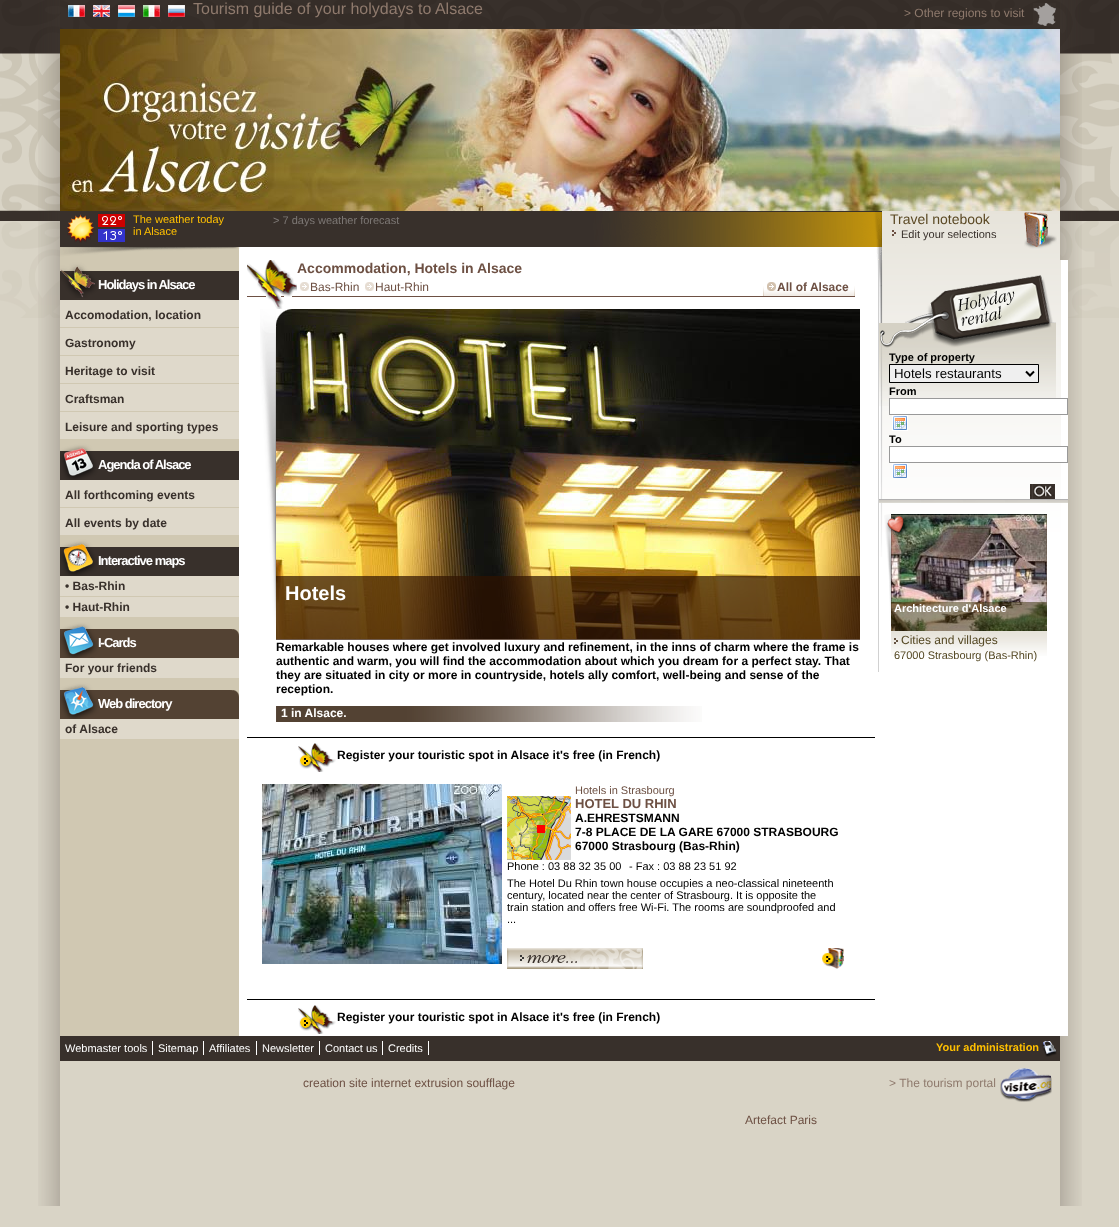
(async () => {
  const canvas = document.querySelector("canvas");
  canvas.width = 1119;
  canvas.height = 1227;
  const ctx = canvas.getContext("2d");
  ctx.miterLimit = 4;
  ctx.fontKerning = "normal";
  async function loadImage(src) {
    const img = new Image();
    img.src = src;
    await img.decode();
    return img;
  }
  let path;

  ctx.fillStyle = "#d9d4c6";
  ctx.fillRect(0, 0, 1119, 1227);
  ctx.drawImage(await loadImage("img/1.png"), 0, 0, 1119, 318);
  ctx.drawImage(await loadImage("img/2.png"), 38, 0, 1044, 1206);
  ctx.drawImage(await loadImage("img/3.png"), 68, 5, 17, 12);
  ctx.drawImage(await loadImage("img/4.png"), 93, 5, 17, 12);
  ctx.drawImage(await loadImage("img/5.png"), 118, 5, 17, 12);
  ctx.drawImage(await loadImage("img/6.png"), 143, 5, 17, 12);
  ctx.drawImage(await loadImage("img/7.png"), 168, 5, 17, 12);
  ctx.drawImage(await loadImage("img/8.png"), 1033, 3, 23, 23);
  ctx.drawImage(await loadImage("img/9.png"), 60, 29, 1000, 182);
  ctx.drawImage(await loadImage("img/10.png"), 60, 211, 1000, 49);
  ctx.drawImage(await loadImage("img/11.png"), 67, 214, 58, 29);
  ctx.drawImage(await loadImage("img/12.png"), 1024, 212, 33, 37);
  ctx.drawImage(await loadImage("img/13.png"), 892, 230, 4, 6);
  for (const [x, y, w, h, color] of [
    [239, 260, 829, 776, "#ffffff"],
    [60, 739, 179, 297, "#d0c8b2"],
    [60, 298, 179, 2, "#38302b"],
  ]) {
    ctx.fillStyle = color;
    ctx.fillRect(x, y, w, h);
  }
  ctx.drawImage(await loadImage("img/14.png"), 60, 260, 179, 38);
  for (const [x, y, w, h, color] of [
    [60, 300, 179, 27, "#dfd9cb"],
    [60, 327, 179, 1, "#d0c8b2"],
    [60, 328, 179, 27, "#dfd9cb"],
    [60, 355, 179, 1, "#d0c8b2"],
    [60, 356, 179, 27, "#dfd9cb"],
    [60, 383, 179, 1, "#d0c8b2"],
    [60, 384, 179, 27, "#dfd9cb"],
    [60, 411, 179, 1, "#d0c8b2"],
    [60, 412, 179, 27, "#dfd9cb"],
    [60, 439, 179, 1, "#d0c8b2"],
  ]) {
    ctx.fillStyle = color;
    ctx.fillRect(x, y, w, h);
  }
  ctx.drawImage(await loadImage("img/15.png"), 60, 440, 179, 40);
  for (const [x, y, w, h, color] of [
    [60, 480, 179, 27, "#dfd9cb"],
    [60, 507, 179, 1, "#d0c8b2"],
    [60, 508, 179, 27, "#dfd9cb"],
    [60, 535, 179, 1, "#d0c8b2"],
  ]) {
    ctx.fillStyle = color;
    ctx.fillRect(x, y, w, h);
  }
  ctx.drawImage(await loadImage("img/16.png"), 60, 536, 179, 40);
  for (const [x, y, w, h, color] of [
    [60, 576, 179, 20, "#dfd9cb"],
    [60, 596, 179, 1, "#d0c8b2"],
    [60, 597, 179, 20, "#dfd9cb"],
    [60, 617, 179, 1, "#d0c8b2"],
  ]) {
    ctx.fillStyle = color;
    ctx.fillRect(x, y, w, h);
  }
  ctx.drawImage(await loadImage("img/17.png"), 60, 618, 179, 40);
  ctx.fillStyle = "#dfd9cb";
  ctx.fillRect(60, 658, 179, 20);
  ctx.fillStyle = "#d0c8b2";
  ctx.fillRect(60, 678, 179, 1);
  ctx.drawImage(await loadImage("img/18.png"), 60, 679, 179, 40);
  ctx.fillStyle = "#dfd9cb";
  ctx.fillRect(60, 719, 179, 20);
  ctx.fillStyle = "#6d5043";
  ctx.fillRect(247, 296, 608, 1);
  ctx.drawImage(await loadImage("img/19.png"), 247, 260, 50, 49);
  ctx.drawImage(await loadImage("img/20.png"), 300, 282, 9, 9);
  ctx.drawImage(await loadImage("img/20.png"), 365, 282, 9, 9);
  ctx.drawImage(await loadImage("img/21.png"), 764, 290, 90, 6);
  ctx.drawImage(await loadImage("img/22.png"), 763, 286, 1, 10);
  ctx.drawImage(await loadImage("img/23.png"), 767, 282, 9, 9);
  ctx.drawImage(await loadImage("img/22.png"), 854, 286, 1, 10);
  ctx.drawImage(await loadImage("img/25.png"), 276, 309, 584, 330);
  ctx.drawImage(await loadImage("img/24.png"), 260, 309, 600, 331);
  ctx.drawImage(await loadImage("img/26.png"), 276, 706, 426, 16);
  ctx.drawImage(await loadImage("img/27.png"), 298, 743, 38, 29);
  ctx.fillStyle = "#000000";
  ctx.fillRect(247, 737, 628, 1);
  ctx.drawImage(await loadImage("img/28.png"), 262, 784, 240, 180);
  ctx.drawImage(await loadImage("img/29.png"), 507, 796, 64, 64);
  ctx.fillStyle = "#ff0000";
  ctx.fillRect(537, 825, 8, 8);
  ctx.drawImage(await loadImage("img/30.png"), 507, 948, 136, 21);
  ctx.drawImage(await loadImage("img/31.png"), 822, 948, 22, 21);
  ctx.drawImage(await loadImage("img/27.png"), 298, 1005, 38, 29);
  ctx.fillStyle = "#000000";
  ctx.fillRect(247, 999, 628, 1);
  ctx.drawImage(await loadImage("img/32.png"), 877, 260, 184, 297);
  ctx.fillStyle = "#d1d1d1";
  ctx.fillRect(878, 260, 1, 412);
  ctx.drawImage(await loadImage("img/33.png"), 879, 275, 177, 131);
  ctx.fillStyle = "#efefef";
  ctx.beginPath();
  ctx.rect(889.5, 364.5, 149, 18);
  ctx.fill();
  ctx.strokeStyle = "#000000";
  ctx.stroke();
  path = new Path2D("M1026 371.5L1030 375.5L1034 371.5");
  ctx.lineWidth = 2;
  ctx.stroke(path);
  ctx.fillStyle = "#ffffff";
  ctx.fillRect(890, 399, 171, 15);
  ctx.strokeStyle = "#999999";
  ctx.lineWidth = 1;
  ctx.strokeRect(889.5, 398.5, 178, 16);
  ctx.drawImage(await loadImage("img/34.png"), 892, 415, 16, 16);
  ctx.fillRect(890, 447, 171, 15);
  ctx.strokeRect(889.5, 446.5, 178, 16);
  ctx.drawImage(await loadImage("img/35.png"), 892, 463, 16, 15);
  ctx.drawImage(await loadImage("img/36.png"), 1030, 484, 25, 15);
  ctx.drawImage(await loadImage("img/37.png"), 879, 499, 189, 4);
  ctx.drawImage(await loadImage("img/39.png"), 891, 514, 156, 117);
  ctx.drawImage(await loadImage("img/38.png"), 884, 514, 163, 117);
  ctx.drawImage(await loadImage("img/40.png"), 891, 631, 156, 25);
  for (const [x, y, w, h, color] of [
    [60, 1036, 1000, 25, "#38302b"],
    [152, 1041, 1, 14, "#ffffff"],
    [203, 1041, 1, 14, "#ffffff"],
    [256, 1041, 1, 14, "#ffffff"],
    [319, 1041, 1, 14, "#ffffff"],
    [382, 1041, 1, 14, "#ffffff"],
    [428, 1041, 1, 14, "#ffffff"],
  ]) {
    ctx.fillStyle = color;
    ctx.fillRect(x, y, w, h);
  }
  ctx.drawImage(await loadImage("img/41.png"), 1042, 1041, 15, 16);
  ctx.drawImage(await loadImage("img/42.png"), 1000, 1068, 52, 34);
  ctx.font = "16px Liberation Sans";
  ctx.fillStyle = "#8f7a6d";
  ctx.fillText("Tourism guide of your holydays to Alsace", 193, 14);
  ctx.font = "12px Liberation Sans";
  ctx.fillText("> Other regions to visit", 904, 17);
  ctx.font = "11px Liberation Sans";
  ctx.fillStyle = "#ffc000";
  ctx.fillText("The weather today", 133, 223);
  ctx.fillText("in Alsace", 133, 235);
  ctx.fillStyle = "#7d7875";
  ctx.fillText("> 7 days weather forecast", 273, 224);
  ctx.font = "14px Liberation Sans";
  ctx.fillStyle = "#5a4823";
  ctx.fillText("Travel notebook", 890, 224);
  ctx.font = "11px Liberation Sans";
  ctx.fillStyle = "#38302b";
  ctx.fillText("Edit your selections", 901, 238);
  ctx.letterSpacing = "-1px";
  ctx.font = "bold 13px Liberation Sans";
  ctx.fillStyle = "#ffffff";
  ctx.fillText("Holidays in Alsace", 98, 289);
  ctx.letterSpacing = "0px";
  ctx.font = "bold 12px Liberation Sans";
  ctx.fillStyle = "#38302b";
  for (const [text, x, y] of [
    ["Accomodation, location", 65, 319],
    ["Gastronomy", 65, 347],
    ["Heritage to visit", 65, 375],
    ["Craftsman", 65, 403],
    ["Leisure and sporting types", 65, 431],
  ]) {
    ctx.fillText(text, x, y);
  }
  ctx.letterSpacing = "-1px";
  ctx.font = "bold 13px Liberation Sans";
  ctx.fillStyle = "#ffffff";
  ctx.fillText("Agenda of Alsace", 98, 469);
  ctx.letterSpacing = "0px";
  ctx.font = "bold 12px Liberation Sans";
  ctx.fillStyle = "#38302b";
  ctx.fillText("All forthcoming events", 65, 499);
  ctx.fillText("All events by date", 65, 527);
  ctx.letterSpacing = "-1px";
  ctx.font = "bold 13px Liberation Sans";
  ctx.fillStyle = "#ffffff";
  ctx.fillText("Interactive maps", 98, 565);
  ctx.letterSpacing = "0px";
  ctx.font = "bold 12px Liberation Sans";
  ctx.fillStyle = "#38302b";
  ctx.fillText("• Bas-Rhin", 65, 590);
  ctx.fillText("• Haut-Rhin", 65, 611);
  ctx.letterSpacing = "-1px";
  ctx.font = "bold 13px Liberation Sans";
  ctx.fillStyle = "#ffffff";
  ctx.fillText("I-Cards", 98, 647);
  ctx.letterSpacing = "0px";
  ctx.font = "bold 12px Liberation Sans";
  ctx.fillStyle = "#38302b";
  ctx.fillText("For your friends", 65, 672);
  ctx.letterSpacing = "-1px";
  ctx.font = "bold 13px Liberation Sans";
  ctx.fillStyle = "#ffffff";
  ctx.fillText("Web directory", 98, 708);
  ctx.letterSpacing = "0px";
  ctx.font = "bold 12px Liberation Sans";
  ctx.fillStyle = "#38302b";
  ctx.fillText("of Alsace", 65, 733);
  ctx.font = "bold 14px Liberation Sans";
  ctx.fillStyle = "#6d5043";
  ctx.fillText("Accommodation, Hotels in Alsace", 297, 273);
  ctx.font = "12px Liberation Sans";
  ctx.fillText("Bas-Rhin", 310, 291);
  ctx.fillText("Haut-Rhin", 375, 291);
  ctx.font = "bold 12px Liberation Sans";
  ctx.fillText("All of Alsace", 777, 291);
  ctx.font = "bold 20px Liberation Sans";
  ctx.fillStyle = "#ffffff";
  ctx.fillText("Hotels", 285, 600);
  ctx.font = "bold 12px Liberation Sans";
  ctx.fillStyle = "#000000";
  for (const [text, x, y] of [
    ["Remarkable houses where get involved luxury and refinement, in the inns of charm where the frame is", 276, 651],
    ["authentic and warm, you will find the accommodation about which you dream for a perfect stay. That", 276, 665],
    ["they are situated in city or more in countryside, hotels ally comfort, well-being and sense of the", 276, 679],
    ["reception.", 276, 693],
  ]) {
    ctx.fillText(text, x, y);
  }
  ctx.fillStyle = "#ffffff";
  ctx.fillText("1 in Alsace.", 281, 717);
  ctx.fillStyle = "#000000";
  ctx.fillText("Register your touristic spot in Alsace it's free (in French)", 337, 759);
  ctx.font = "11px Liberation Sans";
  ctx.fillStyle = "#6d5043";
  ctx.fillText("Hotels in Strasbourg", 575, 794);
  ctx.font = "bold 13px Liberation Sans";
  ctx.fillText("HOTEL DU RHIN", 575, 808);
  ctx.font = "bold 12px Liberation Sans";
  ctx.fillStyle = "#000000";
  for (const [text, x, y] of [
    ["A.EHRESTSMANN", 575, 822],
    ["7-8 PLACE DE LA GARE 67000 STRASBOURG", 575, 836],
    ["67000 Strasbourg (Bas-Rhin)", 575, 850],
  ]) {
    ctx.fillText(text, x, y);
  }
  ctx.font = "11px Liberation Sans";
  for (const [text, x, y] of [
    ["Phone : 03 88 32 35 00", 507, 870],
    ["- Fax : 03 88 23 51 92", 629, 870],
    ["The Hotel Du Rhin town house occupies a neo-classical nineteenth", 507, 887],
    ["century, located near the center of Strasbourg. It is opposite the", 507, 899],
    ["train station and offers free Wi-Fi. The rooms are soundproofed and", 507, 911],
    ["...", 507, 923],
  ]) {
    ctx.fillText(text, x, y);
  }
  ctx.font = "bold 12px Liberation Sans";
  ctx.fillText("Register your touristic spot in Alsace it's free (in French)", 337, 1021);
  ctx.font = "bold 11px Liberation Sans";
  ctx.fillText("Type of property", 889, 361);
  ctx.font = "13.25px Liberation Sans";
  ctx.fillText("Hotels restaurants", 894, 378);
  ctx.font = "bold 11px Liberation Sans";
  ctx.fillText("From", 889, 395);
  ctx.fillText("To", 889, 443);
  ctx.fillStyle = "#ffffff";
  ctx.fillText("Architecture d'Alsace", 894, 612);
  ctx.font = "12px Liberation Sans";
  ctx.fillStyle = "#544823";
  ctx.fillText("Cities and villages", 901, 644);
  ctx.font = "11px Liberation Sans";
  ctx.fillText("67000 Strasbourg (Bas-Rhin)", 894, 659);
  ctx.fillStyle = "#ffffff";
  for (const [text, x, y] of [
    ["Webmaster tools", 65, 1052],
    ["Sitemap", 158, 1052],
    ["Affiliates", 209, 1052],
    ["Newsletter", 262, 1052],
    ["Contact us", 325, 1052],
    ["Credits", 388, 1052],
  ]) {
    ctx.fillText(text, x, y);
  }
  ctx.font = "bold 11px Liberation Sans";
  ctx.fillStyle = "#ffc000";
  ctx.fillText("Your administration", 936, 1051);
  ctx.font = "12px Liberation Sans";
  ctx.fillStyle = "#6d5043";
  ctx.fillText("creation site internet extrusion soufflage", 303, 1087);
  ctx.fillStyle = "#8f7a6d";
  ctx.fillText("> The tourism portal", 889, 1087);
  ctx.fillStyle = "#6d5043";
  ctx.fillText("Artefact Paris", 745, 1124);
})();
